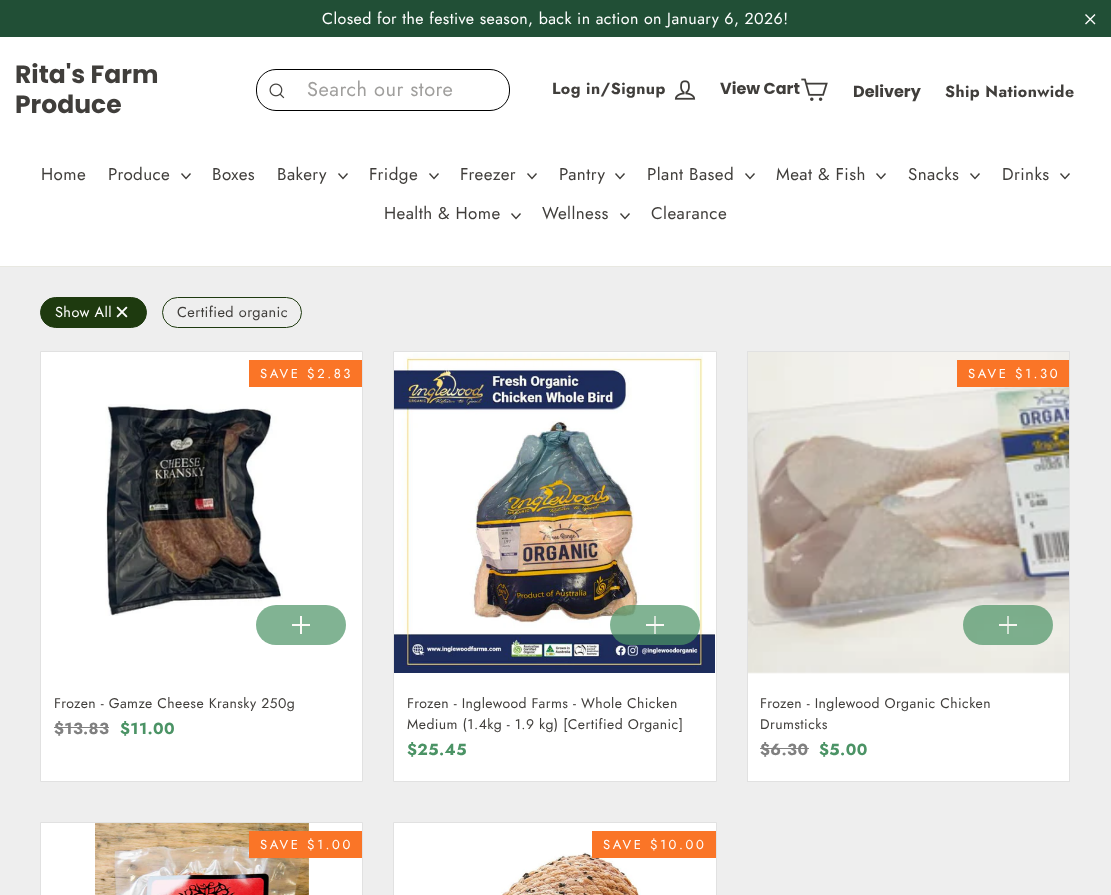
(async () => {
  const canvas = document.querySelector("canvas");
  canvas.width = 1111;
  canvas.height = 895;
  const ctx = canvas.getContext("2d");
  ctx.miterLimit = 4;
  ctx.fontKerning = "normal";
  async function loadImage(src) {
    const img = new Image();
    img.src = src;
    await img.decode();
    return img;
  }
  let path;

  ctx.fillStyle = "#eeeeee";
  ctx.fillRect(0, 0, 1111, 895);
  ctx.fillStyle = "#214f36";
  ctx.fillRect(0, 0, 1111, 37);
  path = new Path2D("M1085.5 14.5L1095 24M1095 14.5L1085.5 24");
  ctx.strokeStyle = "#ffffff";
  ctx.lineWidth = 1.4;
  ctx.stroke(path);
  ctx.fillStyle = "#ffffff";
  ctx.fillRect(0, 37, 1111, 229);
  ctx.fillStyle = "#e8e8e1";
  ctx.fillRect(0, 266, 1111, 1);
  ctx.beginPath();
  ctx.roundRect(256.5, 69.5, 253, 41, 19.5);
  ctx.strokeStyle = "#000000";
  ctx.lineWidth = 1;
  ctx.stroke();
  ctx.drawImage(await loadImage("img/1.png"), 269, 83, 16, 16);
  ctx.drawImage(await loadImage("img/2.png"), 674, 80, 22, 20);
  ctx.drawImage(await loadImage("img/3.png"), 801, 78, 27, 23);
  path = new Path2D("M181.5 173.5L186 178.5L190.5 173.5");
  ctx.strokeStyle = "#403e3b";
  ctx.lineWidth = 1.4;
  ctx.stroke(path);
  path = new Path2D("M338.5 173.5L343 178.5L347.5 173.5");
  ctx.stroke(path);
  path = new Path2D("M429.5 173.5L434 178.5L438.5 173.5");
  ctx.stroke(path);
  path = new Path2D("M527.5 173.5L532 178.5L536.5 173.5");
  ctx.stroke(path);
  path = new Path2D("M615.5 173.5L620 178.5L624.5 173.5");
  ctx.stroke(path);
  path = new Path2D("M745.5 173.5L750 178.5L754.5 173.5");
  ctx.stroke(path);
  path = new Path2D("M876.5 173.5L881 178.5L885.5 173.5");
  ctx.stroke(path);
  path = new Path2D("M970.5 173.5L975 178.5L979.5 173.5");
  ctx.stroke(path);
  path = new Path2D("M1060.5 173.5L1065 178.5L1069.5 173.5");
  ctx.stroke(path);
  path = new Path2D("M511.5 213.5L516 218.5L520.5 213.5");
  ctx.stroke(path);
  path = new Path2D("M620.5 213.5L625 218.5L629.5 213.5");
  ctx.stroke(path);
  ctx.fillStyle = "#1e3a0f";
  ctx.beginPath();
  ctx.roundRect(40.5, 297.5, 106, 30, 15);
  ctx.fill();
  ctx.strokeStyle = "#1e3a0f";
  ctx.lineWidth = 1;
  ctx.stroke();
  ctx.drawImage(await loadImage("img/4.png"), 116, 306, 12, 12);
  ctx.beginPath();
  ctx.roundRect(162.5, 297.5, 139, 30, 15);
  ctx.stroke();
  ctx.fillStyle = "#ffffff";
  ctx.beginPath();
  ctx.rect(40.5, 351.5, 322, 430);
  ctx.fill();
  ctx.strokeStyle = "#e1e1e1";
  ctx.stroke();
  ctx.fillStyle = "#fa7527";
  ctx.fillRect(249, 360, 113, 27);
  ctx.drawImage(await loadImage("img/5.png"), 105, 404, 178, 212);
  ctx.fillStyle = "#81b393";
  ctx.beginPath();
  ctx.roundRect(256, 605, 90, 40, 20);
  ctx.fill();
  for (const [x, y, w, h, color] of [
    [300, 616, 2, 18, "#fbfaf7"],
    [292, 624, 18, 2, "#fbfaf7"],
    [54, 727, 55, 1, "#808080"],
  ]) {
    ctx.fillStyle = color;
    ctx.fillRect(x, y, w, h);
  }
  ctx.fillStyle = "#ffffff";
  ctx.beginPath();
  ctx.rect(393.5, 351.5, 323, 430);
  ctx.fill();
  ctx.stroke();
  ctx.drawImage(await loadImage("img/6.png"), 394, 353, 321, 320);
  ctx.fillStyle = "rgba(75, 147, 101, 0.7)";
  ctx.beginPath();
  ctx.roundRect(610, 605, 90, 40, 20);
  ctx.fill();
  for (const [x, y, w, h, color] of [
    [654, 616, 2, 18, "#d5e3d7"],
    [646, 624, 18, 2, "#fbfaf7"],
    [748, 672, 321, 109, "#ffffff"],
  ]) {
    ctx.fillStyle = color;
    ctx.fillRect(x, y, w, h);
  }
  ctx.strokeRect(747.5, 351.5, 322, 430);
  ctx.drawImage(await loadImage("img/7.png"), 748, 352, 321, 322);
  ctx.fillStyle = "rgba(75, 147, 101, 0.7)";
  ctx.beginPath();
  ctx.roundRect(963, 605, 90, 40, 20);
  ctx.fill();
  for (const [x, y, w, h, color] of [
    [1007, 616, 2, 18, "#d3e2d5"],
    [999, 624, 18, 2, "#f6f5f0"],
    [957, 360, 112, 27, "#fa7527"],
    [760, 748, 49, 1, "#808080"],
  ]) {
    ctx.fillStyle = color;
    ctx.fillRect(x, y, w, h);
  }
  ctx.fillStyle = "#ffffff";
  ctx.beginPath();
  ctx.rect(40.5, 822.5, 322, 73);
  ctx.fill();
  ctx.stroke();
  ctx.drawImage(await loadImage("img/8.png"), 95, 823, 214, 72);
  ctx.fillStyle = "#fa7527";
  ctx.fillRect(249, 831, 113, 27);
  ctx.fillStyle = "#ffffff";
  ctx.beginPath();
  ctx.rect(393.5, 822.5, 323, 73);
  ctx.fill();
  ctx.stroke();
  ctx.drawImage(await loadImage("img/9.png"), 501, 852, 140, 43);
  ctx.fillStyle = "#fa7527";
  ctx.fillRect(592, 831, 124, 27);
  ctx.letterSpacing = "0.42px";
  ctx.font = "16px Jost";
  ctx.fillStyle = "#ffffff";
  ctx.fillText("Closed for the festive season, back in action on January 6, 2026!", 322, 24);
  ctx.letterSpacing = "0px";
  ctx.font = "bold 25px Poppins";
  ctx.fillStyle = "#403e3b";
  ctx.fillText("Rita's Farm", 15, 83);
  ctx.fillText("Produce", 15, 113);
  ctx.letterSpacing = "0.5px";
  ctx.font = "20px Jost";
  ctx.fillStyle = "#a09f9d";
  ctx.fillText("Search our store", 307, 96);
  ctx.letterSpacing = "0.42px";
  ctx.font = "bold 16px Jost";
  ctx.fillStyle = "#403e3b";
  ctx.fillText("Log in/Signup", 552, 94);
  ctx.letterSpacing = "0px";
  ctx.font = "bold 16px Poppins";
  ctx.fillText("View Cart", 720, 94);
  ctx.fillText("Delivery", 853, 97);
  ctx.letterSpacing = "0.42px";
  ctx.font = "bold 16px Jost";
  ctx.fillText("Ship Nationwide", 945, 97);
  ctx.font = "17px Jost";
  for (const [text, x, y] of [
    ["Home", 41, 180],
    ["Produce", 108, 180],
    ["Boxes", 212, 180],
    ["Bakery", 277, 180],
    ["Fridge", 369, 180],
    ["Freezer", 460, 180],
    ["Pantry", 559, 180],
    ["Plant Based", 647, 180],
    ["Meat & Fish", 776, 180],
    ["Snacks", 908, 180],
    ["Drinks", 1002, 180],
    ["Health & Home", 384, 219],
    ["Wellness", 542, 219],
    ["Clearance", 651, 219],
  ]) {
    ctx.fillText(text, x, y);
  }
  ctx.font = "14.5px Jost";
  ctx.fillStyle = "#ffffff";
  ctx.fillText("Show All", 55, 317);
  ctx.fillStyle = "#403e3b";
  ctx.fillText("Certified organic", 177, 317);
  ctx.letterSpacing = "2.6px";
  ctx.font = "13px Jost";
  ctx.fillStyle = "#ffffff";
  ctx.fillText("SAVE $2.83", 260, 378);
  ctx.letterSpacing = "0.42px";
  ctx.font = "14px Jost";
  ctx.fillStyle = "#403e3b";
  ctx.fillText("Frozen - Gamze Cheese Kransky 250g", 54, 708);
  ctx.font = "bold 16px Jost";
  ctx.fillStyle = "#808080";
  ctx.fillText("$13.83", 54, 734);
  ctx.fillStyle = "#4b9365";
  ctx.fillText("$11.00", 120, 734);
  ctx.font = "14px Jost";
  ctx.fillStyle = "#403e3b";
  ctx.fillText("Frozen - Inglewood Farms - Whole Chicken", 407, 708);
  ctx.fillText("Medium (1.4kg - 1.9 kg) [Certified Organic]", 407, 729);
  ctx.font = "bold 16px Jost";
  ctx.fillStyle = "#4b9365";
  ctx.fillText("$25.45", 407, 755);
  ctx.letterSpacing = "2.6px";
  ctx.font = "13px Jost";
  ctx.fillStyle = "#ffffff";
  ctx.fillText("SAVE $1.30", 968, 378);
  ctx.letterSpacing = "0.42px";
  ctx.font = "14px Jost";
  ctx.fillStyle = "#403e3b";
  ctx.fillText("Frozen - Inglewood Organic Chicken", 760, 708);
  ctx.fillText("Drumsticks", 760, 729);
  ctx.font = "bold 16px Jost";
  ctx.fillStyle = "#808080";
  ctx.fillText("$6.30", 760, 755);
  ctx.fillStyle = "#4b9365";
  ctx.fillText("$5.00", 819, 755);
  ctx.letterSpacing = "2.6px";
  ctx.font = "13px Jost";
  ctx.fillStyle = "#ffffff";
  ctx.fillText("SAVE $1.00", 260, 849);
  ctx.fillText("SAVE $10.00", 603, 849);
})();
